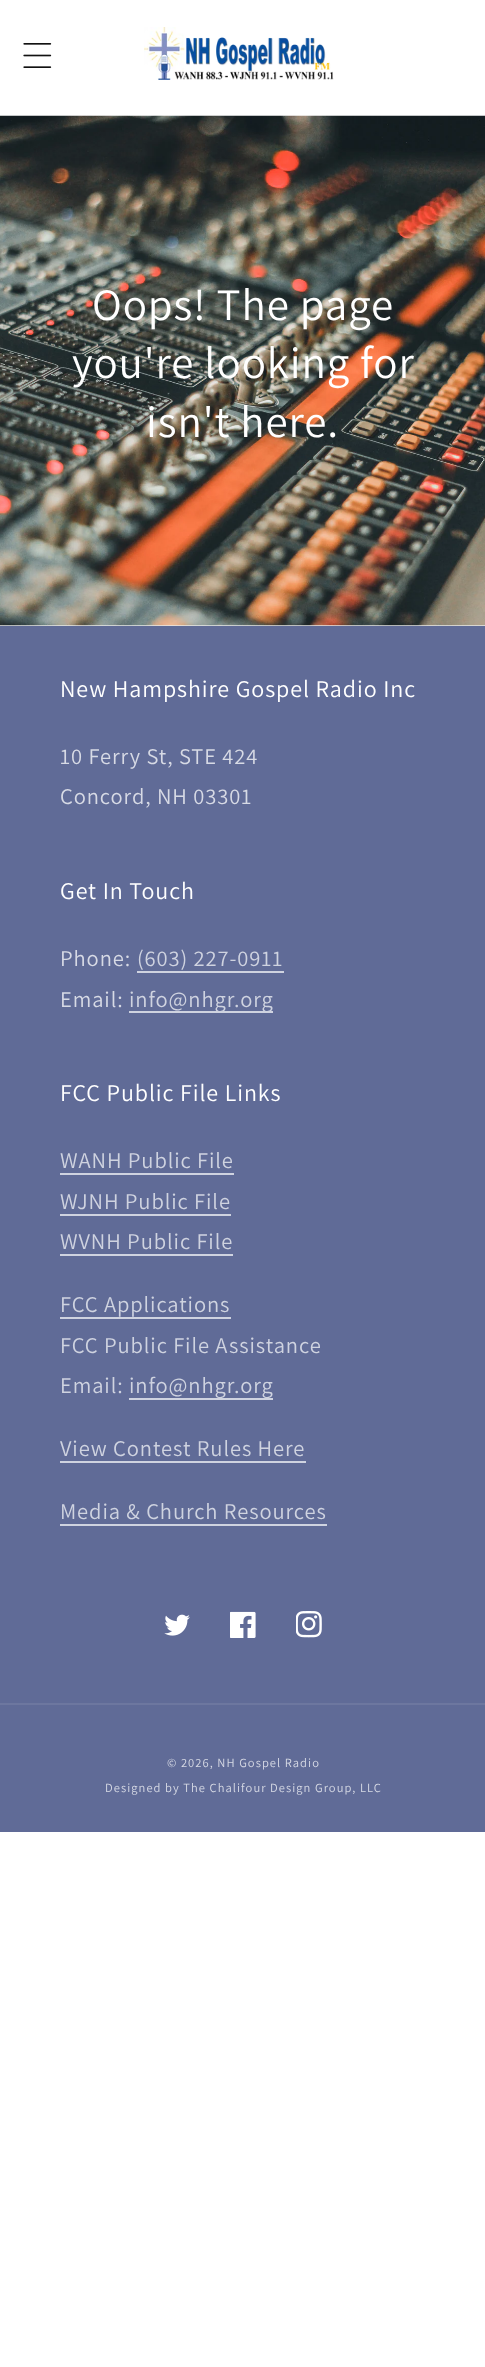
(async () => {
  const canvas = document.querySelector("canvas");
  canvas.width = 485;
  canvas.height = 2367;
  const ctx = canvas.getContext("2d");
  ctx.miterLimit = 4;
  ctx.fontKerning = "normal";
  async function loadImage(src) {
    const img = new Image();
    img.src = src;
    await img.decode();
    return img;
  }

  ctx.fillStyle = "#ffffff";
  ctx.fillRect(0, 0, 485, 2367);
  ctx.drawImage(await loadImage("img/1.png"), 23, 43, 29, 25);
  ctx.drawImage(await loadImage("img/2.png"), 144, 27, 190, 53);
  ctx.fillStyle = "#e8e8e8";
  ctx.fillRect(0, 625, 485, 1);
  ctx.drawImage(await loadImage("img/3.png"), 0, 115, 485, 511);
  for (const [x, y, w, h, color] of [
    [0, 626, 485, 1206, "#606b97"],
    [137, 971, 147, 2, "#cfd3e0"],
    [129, 1011, 144, 2, "#cfd3e0"],
    [60, 1173, 174, 2, "#cfd3e0"],
    [60, 1214, 171, 2, "#cfd3e0"],
    [60, 1254, 173, 2, "#cfd3e0"],
    [60, 1317, 171, 2, "#cfd3e0"],
    [129, 1398, 144, 2, "#cfd3e0"],
    [60, 1461, 246, 2, "#cfd3e0"],
    [60, 1524, 267, 2, "#cfd3e0"],
  ]) {
    ctx.fillStyle = color;
    ctx.fillRect(x, y, w, h);
  }
  ctx.drawImage(await loadImage("img/4.png"), 164, 1614, 26, 22);
  ctx.drawImage(await loadImage("img/5.png"), 230, 1611, 26, 27);
  ctx.drawImage(await loadImage("img/6.png"), 296, 1611, 26, 27);
  ctx.fillStyle = "#6d779f";
  ctx.fillRect(0, 1703, 485, 2);
  ctx.letterSpacing = "0.9px";
  ctx.font = "45px Assistant";
  ctx.fillStyle = "#ffffff";
  for (const [text, x, y] of [
    ["Oops! The page", 92, 320],
    ["you're looking for", 72, 378],
    ["isn't here.", 146, 437],
  ]) {
    ctx.fillText(text, x, y);
  }
  ctx.font = "24px Assistant";
  ctx.fillText("New Hampshire Gospel Radio Inc", 60, 697);
  ctx.font = "22.5px Assistant";
  ctx.fillStyle = "#d7dae5";
  ctx.fillText("10 Ferry St, STE 424", 60, 764);
  ctx.fillText("Concord, NH 03301", 60, 804);
  ctx.font = "24px Assistant";
  ctx.fillStyle = "#ffffff";
  ctx.fillText("Get In Touch", 60, 899);
  ctx.font = "22.5px Assistant";
  ctx.fillStyle = "#d7dae5";
  ctx.fillText("Phone:", 60, 966);
  ctx.fillStyle = "#cfd3e0";
  ctx.fillText("(603) 227-0911", 137, 966);
  ctx.fillStyle = "#d7dae5";
  ctx.fillText("Email:", 60, 1007);
  ctx.fillStyle = "#cfd3e0";
  ctx.fillText("info@nhgr.org", 129, 1007);
  ctx.font = "24px Assistant";
  ctx.fillStyle = "#ffffff";
  ctx.fillText("FCC Public File Links", 60, 1101);
  ctx.font = "22.5px Assistant";
  ctx.fillStyle = "#cfd3e0";
  for (const [text, x, y] of [
    ["WANH Public File", 60, 1168],
    ["WJNH Public File", 60, 1209],
    ["WVNH Public File", 60, 1249],
    ["FCC Applications", 60, 1312],
    ["FCC Public File Assistance", 60, 1353],
    ["Email:", 60, 1393],
    ["info@nhgr.org", 129, 1393],
    ["View Contest Rules Here", 60, 1456],
    ["Media & Church Resources", 60, 1519],
  ]) {
    ctx.fillText(text, x, y);
  }
  ctx.letterSpacing = "1.05px";
  ctx.font = "12.5px Assistant";
  ctx.fillStyle = "#d7dae5";
  ctx.fillText("© 2026, NH Gospel Radio", 167, 1767);
  ctx.fillText("Designed by The Chalifour Design Group, LLC", 105, 1792);
})();
